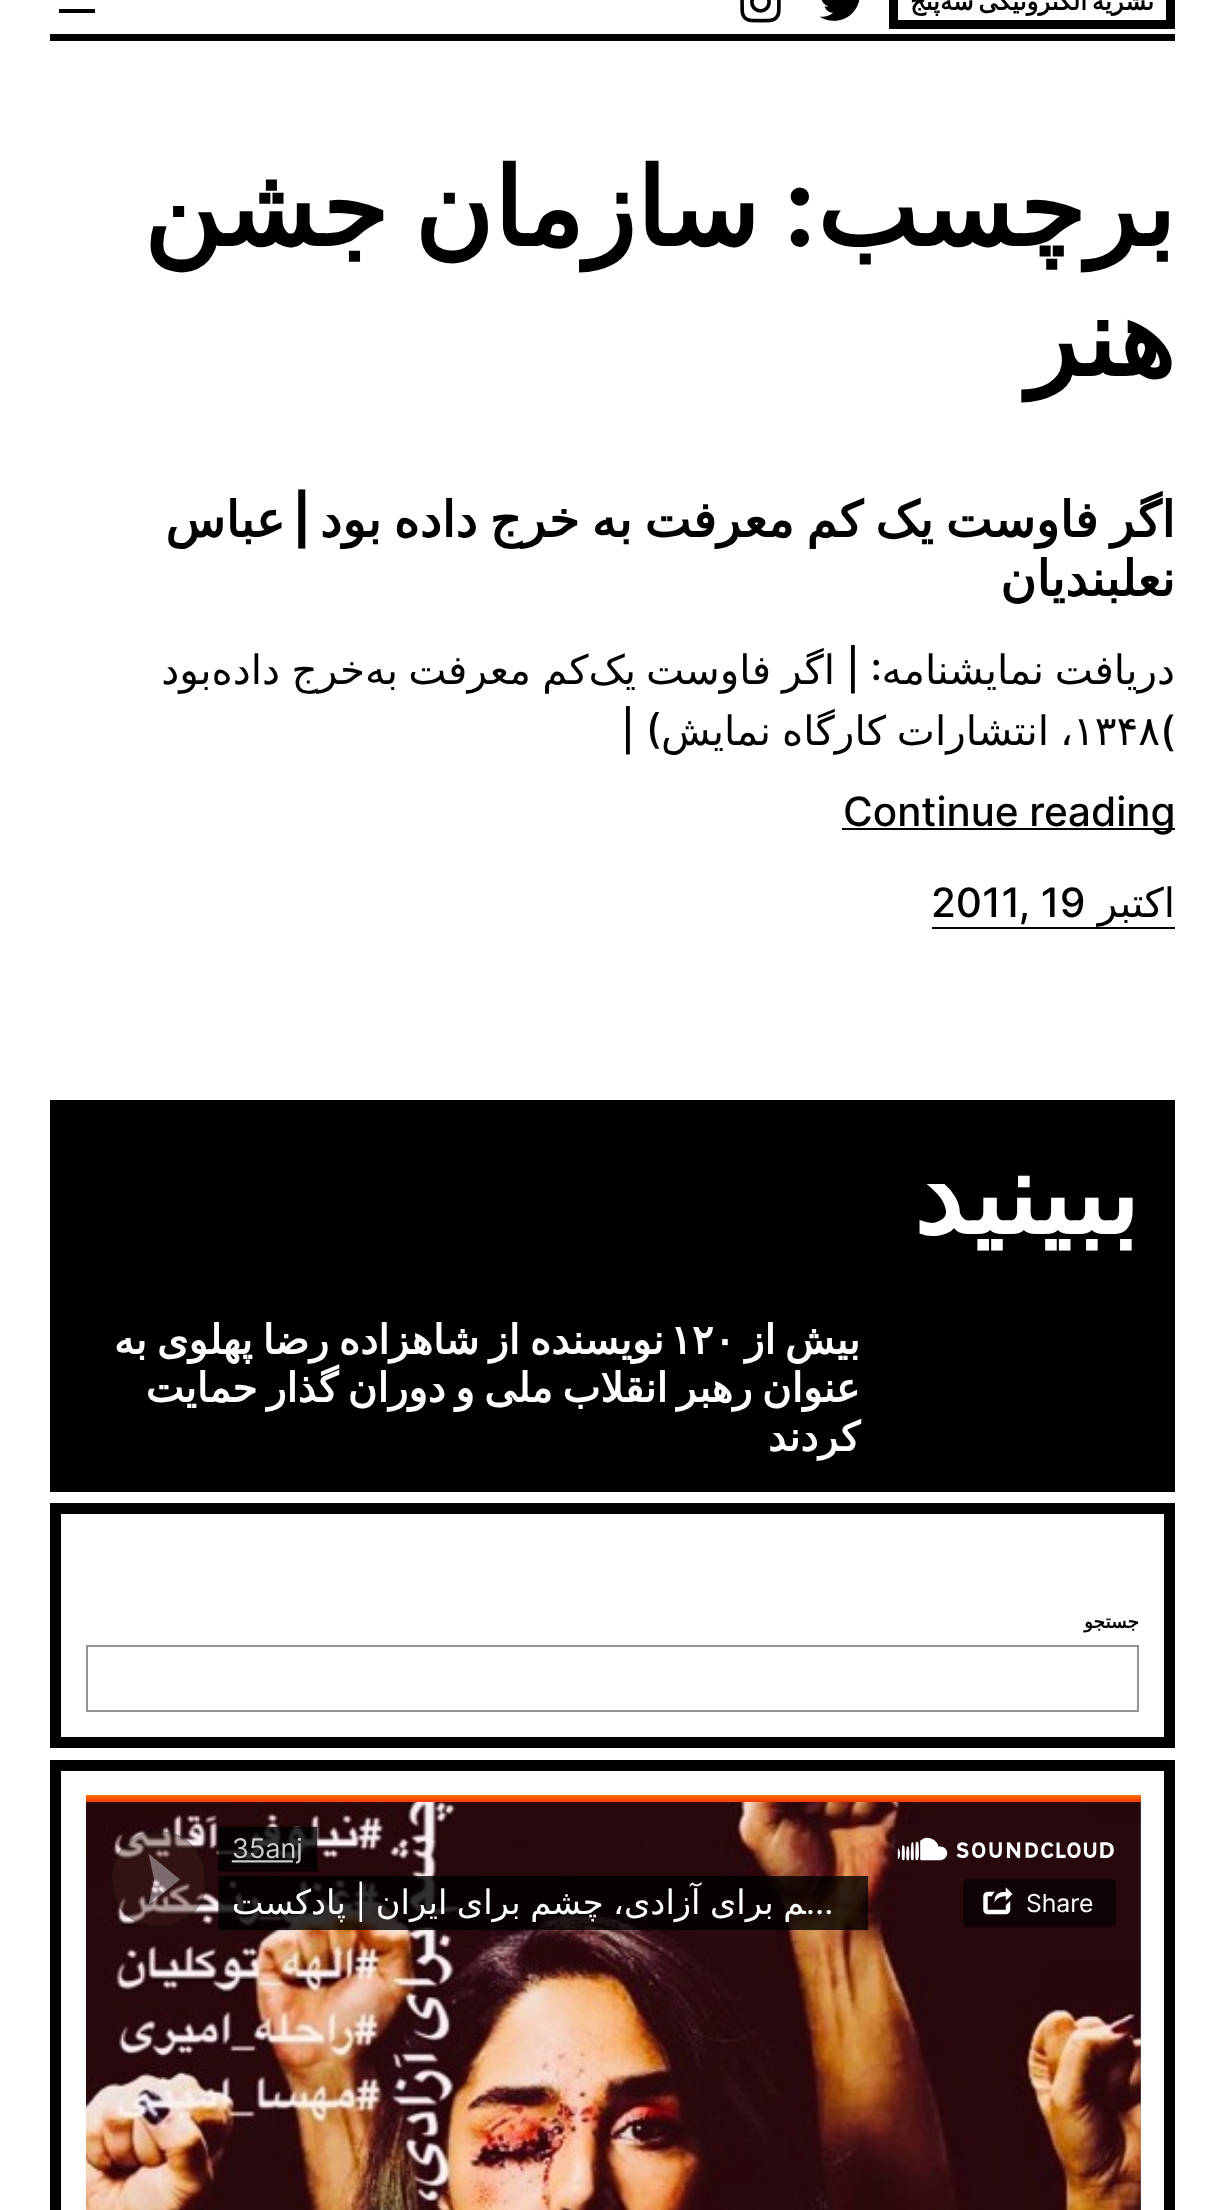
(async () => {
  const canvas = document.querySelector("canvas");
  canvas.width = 1222;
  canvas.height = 2210;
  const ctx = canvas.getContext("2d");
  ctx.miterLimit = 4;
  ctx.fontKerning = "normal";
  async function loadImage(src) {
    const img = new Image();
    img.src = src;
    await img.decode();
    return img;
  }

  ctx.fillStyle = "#ffffff";
  ctx.fillRect(0, 0, 1222, 2210);
  ctx.strokeStyle = "#000000";
  ctx.lineWidth = 9;
  ctx.strokeRect(893.5, -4.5, 277, 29);
  ctx.drawImage(await loadImage("img/1.png"), 819, 0, 41, 21);
  ctx.drawImage(await loadImage("img/2.png"), 740, 0, 41, 23);
  for (const [x, y, w, h, color] of [
    [59, 9, 36, 4, "#000000"],
    [50, 34, 1125, 7, "#000000"],
    [842, 828, 333, 2, "#000000"],
    [932, 927, 243, 2, "#000000"],
    [50, 1100, 1125, 392, "#000000"],
  ]) {
    ctx.fillStyle = color;
    ctx.fillRect(x, y, w, h);
  }
  ctx.lineWidth = 11;
  ctx.strokeRect(55.5, 1508.5, 1114, 234);
  ctx.strokeStyle = "#949494";
  ctx.lineWidth = 2;
  ctx.strokeRect(87, 1646, 1051, 65);
  ctx.strokeStyle = "#000000";
  ctx.lineWidth = 11;
  ctx.strokeRect(55.5, 1765.5, 1114, 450);
  ctx.drawImage(await loadImage("img/3.png"), 85, 1795, 1056, 415);
  ctx.wordSpacing = "-3px";
  ctx.direction = "rtl";
  ctx.font = "bold 24.5px DejaVu Sans";
  ctx.fillText("نشریه الکترونیکی سه‌پنج", 1154, 10);
  ctx.wordSpacing = "0px";
  ctx.font = "bold 108px DejaVu Sans";
  ctx.fillText("برچسب", 1175, 246);
  ctx.font = "bold 108px Inter";
  ctx.fillText(":", 816, 246);
  ctx.wordSpacing = "-9px";
  ctx.font = "bold 108px DejaVu Sans";
  ctx.fillText("سازمان جشن", 759, 246);
  ctx.wordSpacing = "0px";
  ctx.fillText("هنر", 1175, 376);
  ctx.wordSpacing = "-3.5px";
  ctx.font = "bold 49.5px DejaVu Sans";
  ctx.fillText("اگر فاوست یک کم معرفت به خرج داده بود", 1175, 537);
  ctx.wordSpacing = "0px";
  ctx.font = "bold 49.5px Inter";
  ctx.fillText("|", 311, 537);
  ctx.font = "bold 49.5px DejaVu Sans";
  ctx.fillText("عباس", 285, 537);
  ctx.fillText("نعلبندیان", 1175, 596);
  ctx.font = "40.5px DejaVu Sans";
  ctx.fillText("دریافت", 1175, 684);
  ctx.fillText("نمایشنامه", 1044, 684);
  ctx.font = "500 40.5px Inter";
  ctx.fillText(": |", 882, 684);
  ctx.font = "40.5px DejaVu Sans";
  for (const [text, x, y] of [
    ["اگر", 835, 684],
    ["فاوست", 771, 684],
    ["یک‌کم", 636, 684],
    ["معرفت", 531, 684],
    ["به‌خرج", 398, 684],
    ["داده‌بود", 280, 684],
  ]) {
    ctx.fillText(text, x, y);
  }
  ctx.direction = "ltr";
  ctx.font = "500 40.5px Inter";
  ctx.fillText("(", 1160, 745);
  ctx.font = "40.5px DejaVu Sans";
  ctx.fillText("۱۳۴۸", 1073, 745);
  ctx.direction = "rtl";
  for (const [text, x, y] of [
    ["،", 1073, 745],
    ["انتشارات", 1049, 745],
    ["کارگاه", 886, 745],
    ["نمایش", 771, 745],
  ]) {
    ctx.fillText(text, x, y);
  }
  ctx.font = "500 40.5px Inter";
  ctx.fillText(") |", 661, 745);
  ctx.direction = "ltr";
  ctx.fillText("Continue reading", 843, 826);
  ctx.direction = "rtl";
  ctx.font = "40.5px DejaVu Sans";
  ctx.fillText("اکتبر", 1175, 917);
  ctx.direction = "ltr";
  ctx.font = "500 40.5px Inter";
  ctx.fillText("2011, 19", 931, 917);
  ctx.direction = "rtl";
  ctx.font = "bold 112.5px DejaVu Sans";
  ctx.fillStyle = "#ffffff";
  ctx.fillText("ببینید", 1139, 1234);
  ctx.wordSpacing = "-3.5px";
  ctx.font = "bold 40.5px DejaVu Sans";
  ctx.fillText("بیش از", 860, 1354);
  ctx.wordSpacing = "0px";
  ctx.direction = "ltr";
  ctx.fillText("۱۲۰", 670, 1354);
  ctx.wordSpacing = "-3px";
  ctx.direction = "rtl";
  ctx.fillText("نویسنده از شاهزاده رضا پهلوی به", 664, 1354);
  ctx.wordSpacing = "-3.5px";
  ctx.fillText("عنوان رهبر انقلاب ملی و دوران گذار حمایت", 860, 1402);
  ctx.wordSpacing = "0px";
  ctx.fillText("کردند", 860, 1451);
  ctx.font = "bold 18.5px DejaVu Sans";
  ctx.fillStyle = "#000000";
  ctx.fillText("جستجو", 1139, 1628);
})();
